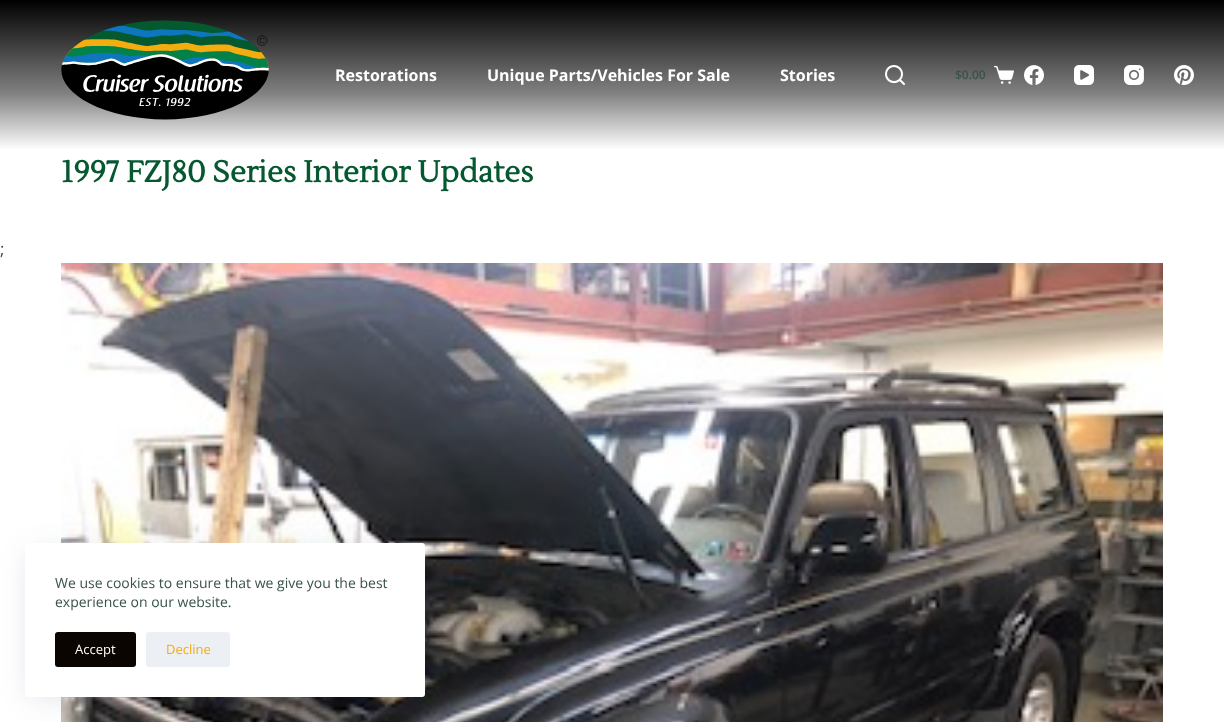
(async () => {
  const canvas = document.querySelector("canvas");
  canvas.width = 1224;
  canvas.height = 722;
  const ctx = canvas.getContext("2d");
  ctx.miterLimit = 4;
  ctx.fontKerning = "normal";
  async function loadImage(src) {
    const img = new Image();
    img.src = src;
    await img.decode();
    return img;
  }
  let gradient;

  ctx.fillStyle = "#ffffff";
  ctx.fillRect(0, 0, 1224, 722);
  gradient = ctx.createLinearGradient(612, 0, 612, 150);
  gradient.addColorStop(0, "#000000");
  gradient.addColorStop(0.62, "#808080");
  gradient.addColorStop(1, "#ffffff");
  ctx.fillStyle = gradient;
  ctx.fillRect(0, 0, 1224, 149);
  ctx.drawImage(await loadImage("img/1.png"), 61, 20, 208, 100);
  ctx.drawImage(await loadImage("img/2.png"), 885, 65, 20, 20);
  ctx.drawImage(await loadImage("img/3.png"), 994, 65, 20, 19);
  ctx.drawImage(await loadImage("img/4.png"), 1024, 65, 20, 20);
  ctx.drawImage(await loadImage("img/5.png"), 1074, 65, 20, 20);
  ctx.drawImage(await loadImage("img/6.png"), 1124, 65, 20, 20);
  ctx.drawImage(await loadImage("img/7.png"), 1174, 65, 20, 20);
  ctx.drawImage(await loadImage("img/8.png"), 61, 263, 1102, 459);
  ctx.fillStyle = "rgba(34, 56, 101, 0.15)";
  ctx.filter = "blur(15px)";
  ctx.beginPath();
  ctx.rect(30, 553, 390, 144);
  ctx.fill();
  ctx.filter = "none";
  ctx.fillStyle = "#ffffff";
  ctx.beginPath();
  ctx.roundRect(25, 543, 400, 154, 3);
  ctx.fill();
  ctx.fillStyle = "#0a0500";
  ctx.beginPath();
  ctx.roundRect(55, 632, 81, 35, 3);
  ctx.fill();
  ctx.fillStyle = "#eceff3";
  ctx.beginPath();
  ctx.roundRect(146, 632, 84, 35, 3);
  ctx.fill();
  ctx.font = "bold 16px Open Sans";
  ctx.fillStyle = "#ffffff";
  for (const [text, x, y] of [
    ["Restorations", 335, 81],
    ["Unique Parts/Vehicles For Sale", 487, 81],
    ["Stories", 780, 81],
  ]) {
    ctx.fillText(text, x, y);
  }
  ctx.font = "600 12px Open Sans";
  ctx.fillStyle = "#3a5347";
  ctx.fillText("$0.00", 955, 79);
  ctx.font = "bold 30px Lustria";
  ctx.fillStyle = "#055830";
  ctx.fillText("1997 FZJ80 Series Interior Updates", 61, 182);
  ctx.font = "17px Open Sans";
  ctx.fillStyle = "#3a5347";
  ctx.fillText(";", 0, 255);
  ctx.font = "14px Open Sans";
  ctx.fillText("We use cookies to ensure that we give you the best", 55, 588);
  ctx.fillText("experience on our website.", 55, 607);
  ctx.font = "13px Open Sans";
  ctx.fillStyle = "#ffffff";
  ctx.fillText("Accept", 75, 654);
  ctx.fillStyle = "#f4ad0f";
  ctx.fillText("Decline", 166, 654);
})();
